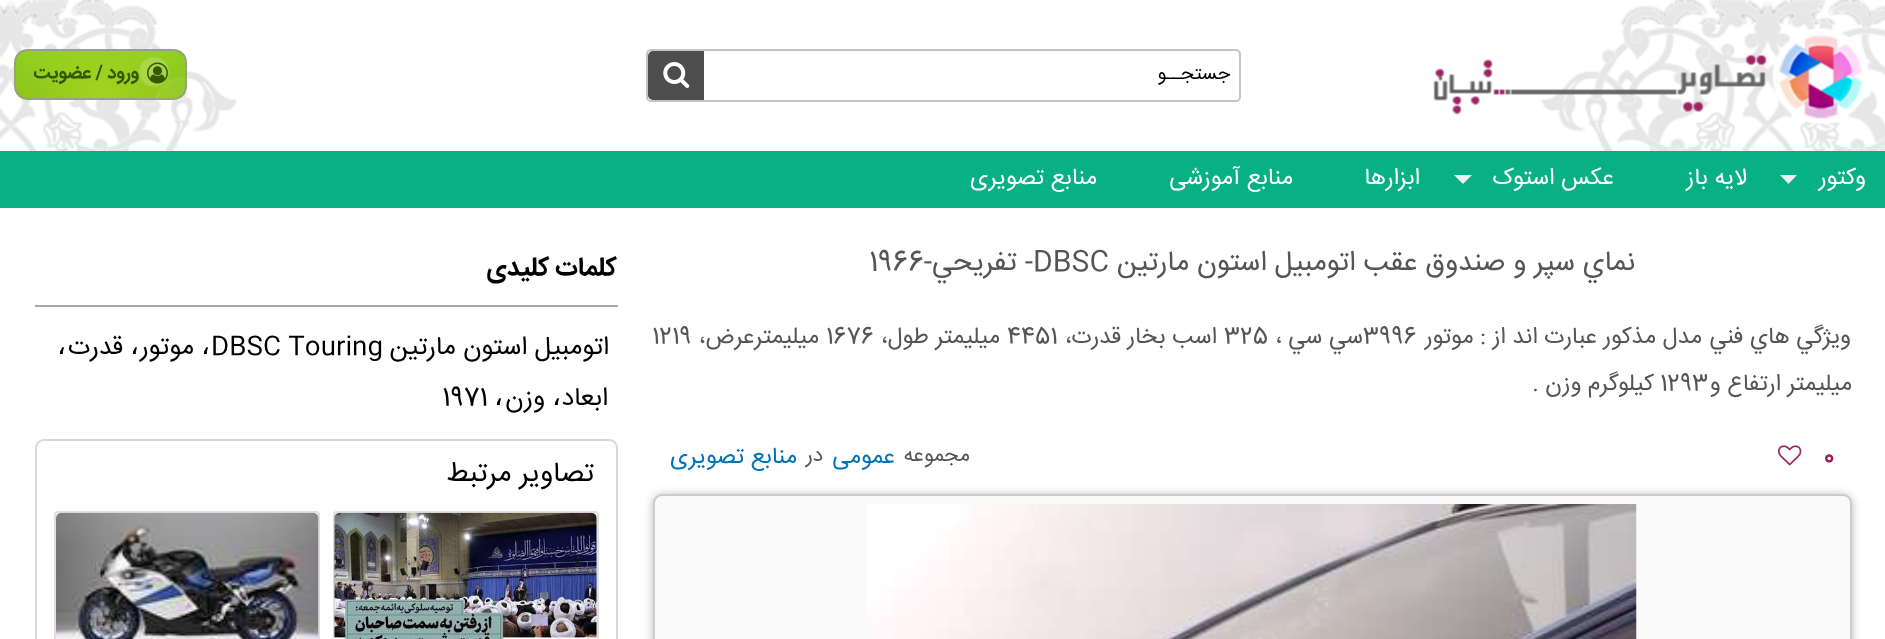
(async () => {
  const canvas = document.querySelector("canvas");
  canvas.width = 1885;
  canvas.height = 639;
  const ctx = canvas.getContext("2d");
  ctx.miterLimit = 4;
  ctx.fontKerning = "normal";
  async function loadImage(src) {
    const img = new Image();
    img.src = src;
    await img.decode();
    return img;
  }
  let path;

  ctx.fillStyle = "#ffffff";
  ctx.fillRect(0, 0, 1885, 639);
  ctx.drawImage(await loadImage("img/1.png"), 1541, 0, 344, 151);
  ctx.drawImage(await loadImage("img/2.png"), 0, 0, 237, 151);
  ctx.drawImage(await loadImage("img/3.png"), 1433, 27, 436, 98);
  ctx.beginPath();
  ctx.roundRect(647, 50, 593, 51, 4);
  ctx.strokeStyle = "#c4c4c4";
  ctx.lineWidth = 2;
  ctx.stroke();
  ctx.fillStyle = "#4d4d4d";
  ctx.beginPath();
  ctx.roundRect(648, 51, 56, 49, [5, 0, 0, 5]);
  ctx.fill();
  ctx.drawImage(await loadImage("img/4.png"), 663, 62, 27, 26);
  ctx.drawImage(await loadImage("img/5.png"), 15, 50, 172, 50);
  ctx.beginPath();
  ctx.roundRect(15, 50, 171, 49, 13);
  ctx.strokeStyle = "#96a37b";
  ctx.stroke();
  ctx.drawImage(await loadImage("img/6.png"), 147, 62, 21, 22);
  ctx.fillStyle = "#07b085";
  ctx.fillRect(0, 151, 1885, 57);
  ctx.fillStyle = "#eeeeee";
  path = new Path2D("M1780 175H1797L1788.5 184Z");
  ctx.fill(path);
  path = new Path2D("M1454 175H1472L1463 184Z");
  ctx.fill(path);
  ctx.drawImage(await loadImage("img/7.png"), 1778, 445, 24, 21);
  ctx.fillStyle = "rgba(136, 136, 136, 0.6)";
  ctx.filter = "blur(5px)";
  ctx.beginPath();
  ctx.roundRect(653, 495, 1199, 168, 9);
  ctx.fill();
  ctx.filter = "none";
  ctx.fillStyle = "#fafafa";
  ctx.beginPath();
  ctx.roundRect(654, 495, 1197, 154, 8);
  ctx.fill();
  ctx.strokeStyle = "#cccccc";
  ctx.stroke();
  ctx.drawImage(await loadImage("img/8.png"), 867, 504, 770, 135);
  ctx.fillStyle = "#a6a9ac";
  ctx.fillRect(35, 305, 583, 2);
  ctx.beginPath();
  ctx.roundRect(36, 440, 581, 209, 8);
  ctx.strokeStyle = "#d8d9da";
  ctx.stroke();
  ctx.beginPath();
  ctx.roundRect(334, 512, 264, 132, 3);
  ctx.strokeStyle = "#dfdfdf";
  ctx.stroke();
  ctx.drawImage(await loadImage("img/9.png"), 334, 512, 263, 127);
  ctx.beginPath();
  ctx.roundRect(55, 512, 264, 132, 3);
  ctx.stroke();
  ctx.drawImage(await loadImage("img/10.png"), 56, 512, 263, 127);
  ctx.direction = "rtl";
  ctx.font = "19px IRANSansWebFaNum";
  ctx.fillStyle = "#000000";
  ctx.fillText("جستجــو", 1230, 79);
  ctx.font = "bold 18.5px IRANSansWebFaNum";
  ctx.fillStyle = "#345903";
  ctx.fillText("ورود / عضویت", 139, 78);
  ctx.font = "23.25px IRANSansWebFaNum";
  ctx.fillStyle = "#ffffff";
  for (const [text, x, y] of [
    ["وکتور", 1866, 184],
    ["لایه باز", 1747, 184],
    ["عکس استوک", 1614, 184],
    ["ابزارها", 1420, 184],
    ["منابع آموزشی", 1293, 184],
    ["منابع تصویری", 1097, 184],
  ]) {
    ctx.fillText(text, x, y);
  }
  ctx.font = "28px IRANSansWebFaNum";
  ctx.fillStyle = "#555555";
  ctx.fillText("نماي سپر و صندوق عقب اتومبيل استون مارتين", 1635, 270);
  ctx.direction = "ltr";
  ctx.fillText("DBSC", 1033, 270);
  ctx.direction = "rtl";
  ctx.fillText("- تفريحي-", 1033, 270);
  ctx.direction = "ltr";
  ctx.fillText("1966", 869, 270);
  ctx.direction = "rtl";
  ctx.font = "23.25px IRANSansWebFaNum";
  ctx.fillText("ويژگي هاي فني", 1851, 343);
  ctx.fillText("مدل مذکور عبارت اند از : موتور", 1702, 343);
  ctx.direction = "ltr";
  ctx.fillText("3996", 1363, 343);
  ctx.direction = "rtl";
  ctx.fillText("سي سي ،", 1363, 343);
  ctx.direction = "ltr";
  ctx.fillText("325", 1224, 343);
  ctx.direction = "rtl";
  ctx.fillText("اسب بخار قدرت،", 1217, 343);
  ctx.direction = "ltr";
  ctx.fillText("4451", 1007, 343);
  ctx.direction = "rtl";
  ctx.fillText("ميليمتر طول،", 1000, 343);
  ctx.direction = "ltr";
  ctx.fillText("1676", 826, 343);
  ctx.direction = "rtl";
  ctx.fillText("ميليمترعرض،", 819, 343);
  ctx.direction = "ltr";
  ctx.fillText("1219", 652, 343);
  ctx.direction = "rtl";
  ctx.fillText("ميليمتر ارتفاع و", 1852, 390);
  ctx.direction = "ltr";
  ctx.fillText("1293", 1660, 390);
  ctx.direction = "rtl";
  ctx.fillText("کيلوگرم وزن .", 1654, 390);
  ctx.direction = "ltr";
  ctx.font = "bold 23.25px IRANSansWebFaNum";
  ctx.fillStyle = "#9b2361";
  ctx.fillText("0", 1824, 463);
  ctx.direction = "rtl";
  ctx.font = "21px IRANSansWebFaNum";
  ctx.fillStyle = "#555555";
  ctx.fillText("مجموعه", 970, 461);
  ctx.font = "23.25px IRANSansWebFaNum";
  ctx.fillStyle = "#0072bc";
  ctx.fillText("عمومی", 895, 463);
  ctx.font = "21px IRANSansWebFaNum";
  ctx.fillStyle = "#555555";
  ctx.fillText("در", 823, 461);
  ctx.font = "23.25px IRANSansWebFaNum";
  ctx.fillStyle = "#0072bc";
  ctx.fillText("منابع تصویری", 797, 463);
  ctx.font = "bold 25.75px IRANSansWebFaNum";
  ctx.fillStyle = "#000000";
  ctx.fillText("کلمات کلیدی", 617, 275);
  ctx.font = "25.75px IRANSansWebFaNum";
  ctx.fillText("اتومبيل استون مارتين", 609, 354);
  ctx.direction = "ltr";
  ctx.fillText("DBSC Touring", 211, 354);
  ctx.font = "28px DejaVu Sans";
  ctx.fillText("،", 201, 354);
  ctx.direction = "rtl";
  ctx.font = "25.75px IRANSansWebFaNum";
  ctx.fillText("موتور", 194, 354);
  ctx.direction = "ltr";
  ctx.font = "28px DejaVu Sans";
  ctx.fillText("،", 130, 354);
  ctx.direction = "rtl";
  ctx.font = "25.75px IRANSansWebFaNum";
  ctx.fillText("قدرت", 123, 354);
  ctx.direction = "ltr";
  ctx.font = "28px DejaVu Sans";
  ctx.fillText("،", 57, 354);
  ctx.direction = "rtl";
  ctx.font = "25.75px IRANSansWebFaNum";
  ctx.fillText("ابعاد", 608, 405);
  ctx.direction = "ltr";
  ctx.font = "28px DejaVu Sans";
  ctx.fillText("،", 552, 405);
  ctx.direction = "rtl";
  ctx.font = "25.75px IRANSansWebFaNum";
  ctx.fillText("وزن", 545, 405);
  ctx.direction = "ltr";
  ctx.font = "28px DejaVu Sans";
  ctx.fillText("،", 494, 405);
  ctx.font = "25.75px IRANSansWebFaNum";
  ctx.fillText("1971", 442, 405);
  ctx.direction = "rtl";
  ctx.font = "28px IRANSansWebFaNum";
  ctx.fillText("تصاویر مرتبط", 594, 481);
})();
